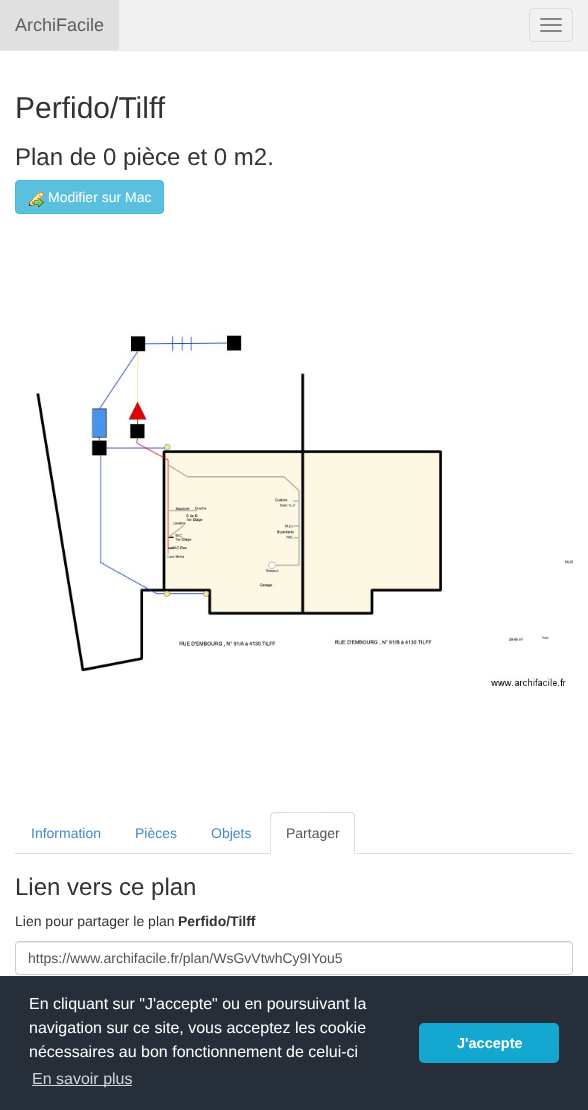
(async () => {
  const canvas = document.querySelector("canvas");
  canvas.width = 588;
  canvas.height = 1110;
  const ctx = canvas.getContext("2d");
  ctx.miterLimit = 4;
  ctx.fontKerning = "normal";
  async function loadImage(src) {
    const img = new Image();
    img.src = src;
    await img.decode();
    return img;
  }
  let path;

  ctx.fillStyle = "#ffffff";
  ctx.fillRect(0, 0, 588, 1110);
  for (const [x, y, w, h, color] of [
    [119, 0, 469, 50, "#f1f1f1"],
    [0, 50, 588, 1, "#e7e7e7"],
    [0, 0, 119, 50, "#e0e0e0"],
  ]) {
    ctx.fillStyle = color;
    ctx.fillRect(x, y, w, h);
  }
  ctx.beginPath();
  ctx.roundRect(529.5, 8.5, 43, 33, 3.5);
  ctx.strokeStyle = "#dddddd";
  ctx.stroke();
  ctx.fillStyle = "#888888";
  ctx.beginPath();
  ctx.roundRect(540, 18, 22, 2, 1);
  ctx.fill();
  ctx.beginPath();
  ctx.roundRect(540, 24, 22, 2, 1);
  ctx.fill();
  ctx.beginPath();
  ctx.roundRect(540, 30, 22, 2, 1);
  ctx.fill();
  ctx.fillStyle = "#5bc0de";
  ctx.beginPath();
  ctx.roundRect(15.5, 180.5, 148, 33, 3.5);
  ctx.fill();
  ctx.strokeStyle = "#46b8da";
  ctx.stroke();
  ctx.drawImage(await loadImage("img/1.png"), 29, 192, 15, 15);
  ctx.drawImage(await loadImage("img/2.png"), 35, 331, 538, 357);
  ctx.fillStyle = "#dddddd";
  ctx.fillRect(15, 853, 558, 1);
  ctx.fillStyle = "#ffffff";
  ctx.beginPath();
  ctx.roundRect(270, 812, 85, 42, [4, 4, 0, 0]);
  ctx.fill();
  ctx.fillStyle = "#dddddd";
  path = new Path2D("M274 812L271 813L272 814C274 812 331 813 338 813H351L353 814L354 813L351 812Z");
  ctx.fill(path);
  path = new Path2D("M355 854V816C355 815 354 814 354 813L353 814C355 816 354 848 354 853Z");
  ctx.fill(path);
  path = new Path2D("M270 854L271 853C271 848 270 816 272 814L271 813L270 816Z");
  ctx.fill(path);
  ctx.fillStyle = "#ececec";
  path = new Path2D("M19 943H569C571 943 572 944 572 946C572 944 571 942 569 942H19L17 943L16 944V946C16 944 17 943 19 943Z");
  ctx.fill(path);
  ctx.beginPath();
  ctx.roundRect(15.5, 941.5, 557, 33, 3.5);
  ctx.strokeStyle = "#cccccc";
  ctx.stroke();
  ctx.fillStyle = "#252e39";
  ctx.fillRect(0, 976, 588, 134);
  ctx.fillStyle = "#d3d5d7";
  ctx.fillRect(32, 1085, 100, 1);
  ctx.fillStyle = "#14a7d0";
  ctx.beginPath();
  ctx.roundRect(419, 1023, 140, 40, 5);
  ctx.fill();
  ctx.font = "18px Liberation Sans";
  ctx.fillStyle = "#5e5e5e";
  ctx.fillText("ArchiFacile", 15, 31);
  ctx.font = "30px Liberation Sans";
  ctx.fillStyle = "#333333";
  ctx.fillText("Perfido/Tilff", 15, 118);
  ctx.font = "24px Liberation Sans";
  ctx.fillText("Plan de 0 pièce et 0 m2.", 15, 165);
  ctx.font = "14px Liberation Sans";
  ctx.fillStyle = "#ffffff";
  ctx.fillText("Modifier sur Mac", 48, 202);
  ctx.fillStyle = "#428bca";
  for (const [text, x, y] of [
    ["Information", 31, 838],
    ["Pièces", 135, 838],
    ["Objets", 211, 838],
  ]) {
    ctx.fillText(text, x, y);
  }
  ctx.fillStyle = "#555555";
  ctx.fillText("Partager", 286, 838);
  ctx.font = "24px Liberation Sans";
  ctx.fillStyle = "#333333";
  ctx.fillText("Lien vers ce plan", 15, 895);
  ctx.font = "14px Liberation Sans";
  ctx.fillText("Lien pour partager le plan", 15, 926);
  ctx.font = "bold 14px Liberation Sans";
  ctx.fillText("Perfido/Tilff", 178, 926);
  ctx.font = "14px Liberation Sans";
  ctx.fillStyle = "#555555";
  ctx.fillText("https://www.archifacile.fr/plan/WsGvVtwhCy9IYou5", 28, 963);
  ctx.font = "16px Liberation Sans";
  ctx.fillStyle = "#ffffff";
  for (const [text, x, y] of [
    ["En cliquant sur \"J'accepte\" ou en poursuivant la", 29, 1009],
    ["navigation sur ce site, vous acceptez les cookie", 29, 1033],
    ["nécessaires au bon fonctionnement de celui-ci", 29, 1057],
  ]) {
    ctx.fillText(text, x, y);
  }
  ctx.fillStyle = "#d3d5d7";
  ctx.fillText("En savoir plus", 32, 1084);
  ctx.font = "bold 14.5px Liberation Sans";
  ctx.fillStyle = "#ffffff";
  ctx.fillText("J'accepte", 457, 1048);
})();
